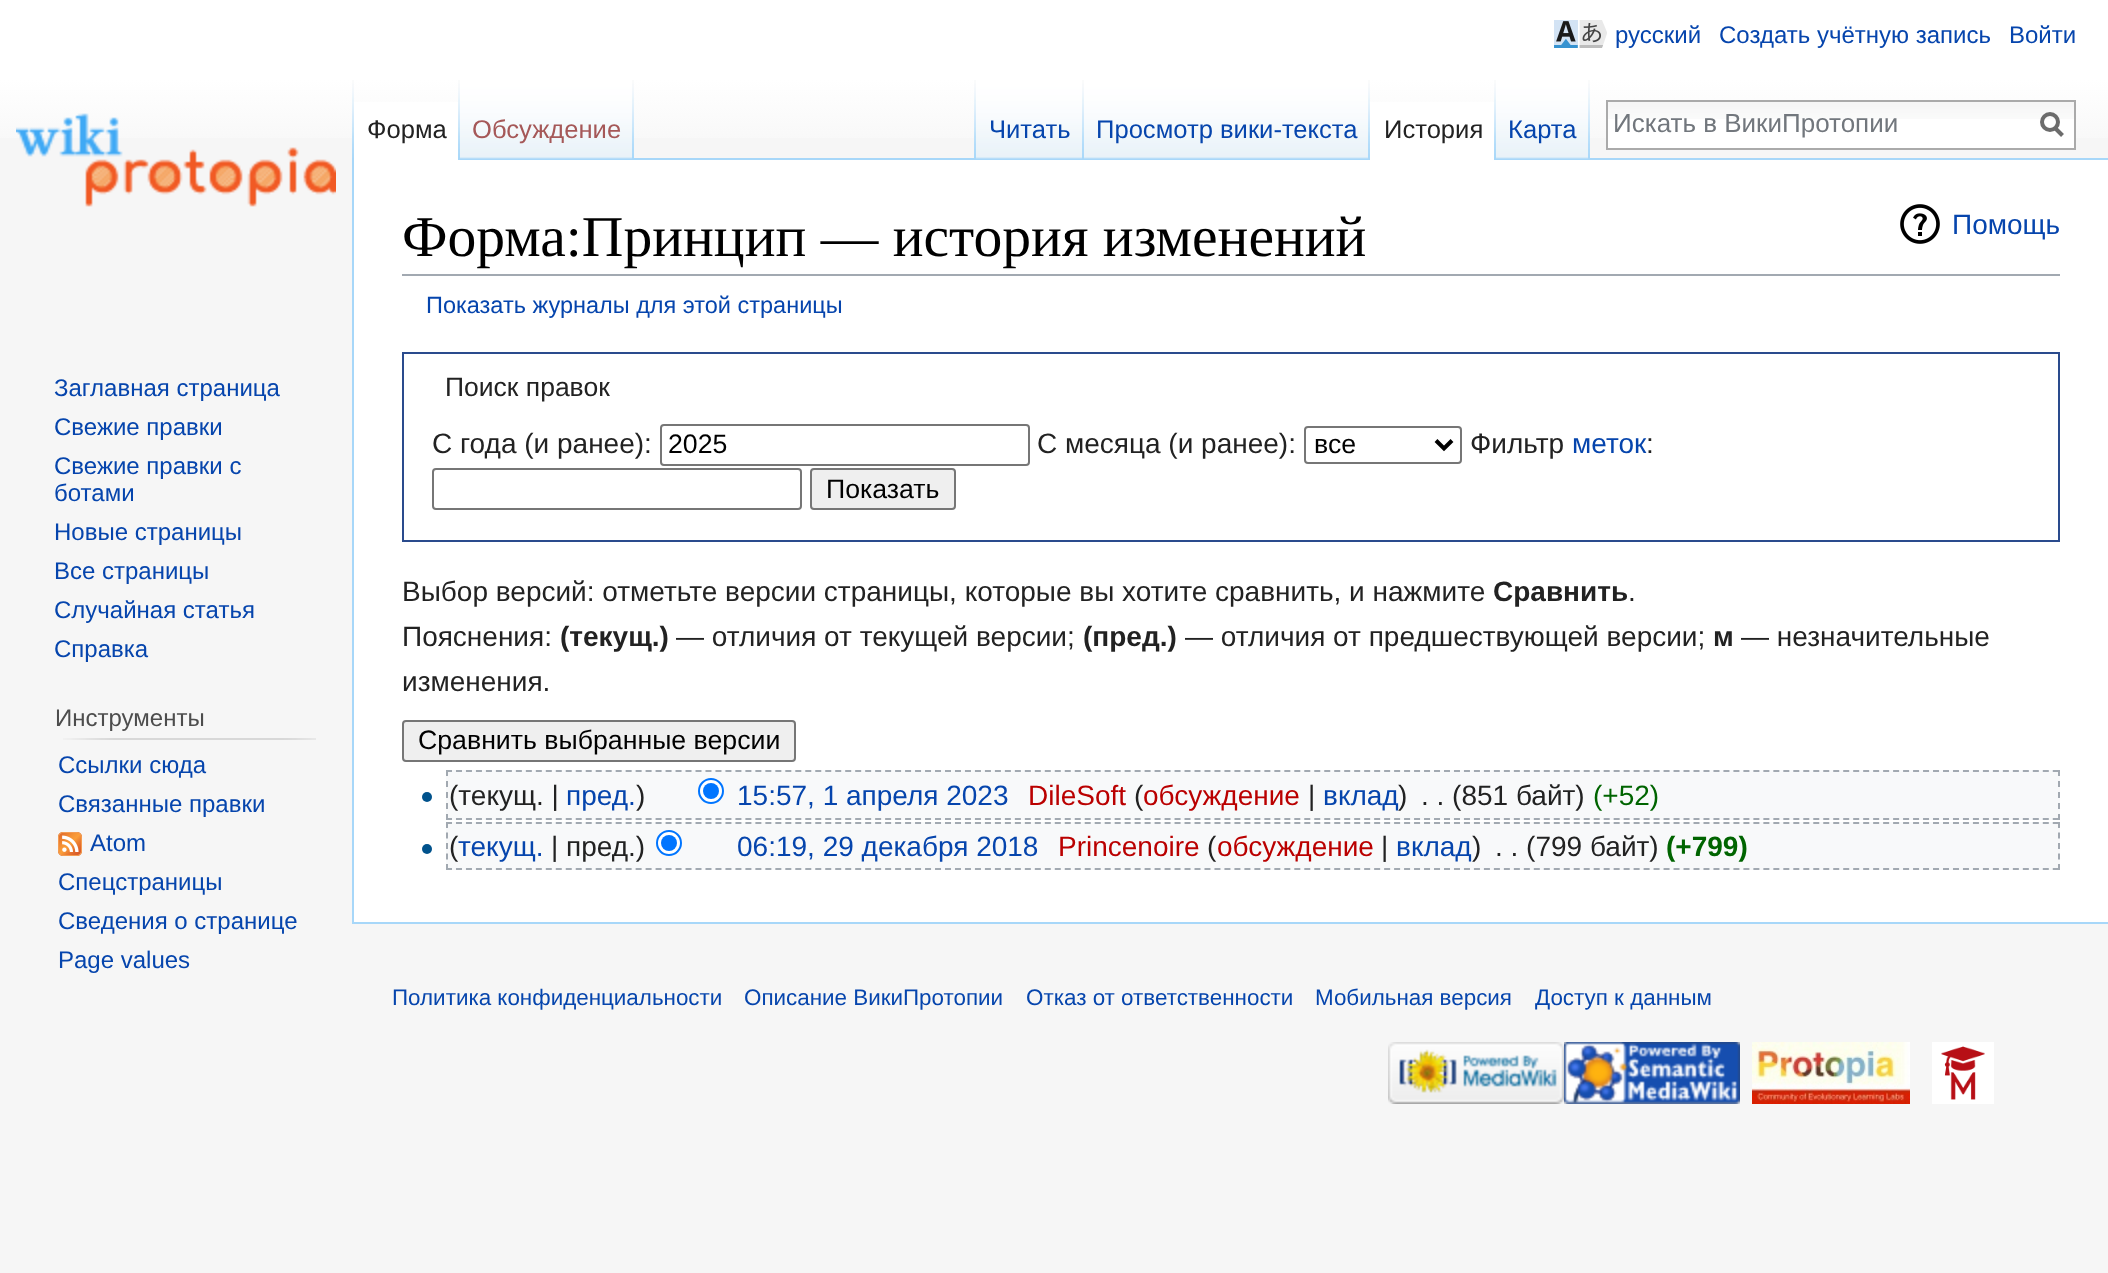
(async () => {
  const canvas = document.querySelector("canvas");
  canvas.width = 2108;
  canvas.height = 1273;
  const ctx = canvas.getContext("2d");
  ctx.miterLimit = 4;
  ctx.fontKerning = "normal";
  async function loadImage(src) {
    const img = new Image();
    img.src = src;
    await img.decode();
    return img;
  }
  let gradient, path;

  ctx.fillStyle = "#f6f6f6";
  ctx.fillRect(0, 0, 2108, 1273);
  gradient = ctx.createLinearGradient(1054, 0, 1054, 160);
  gradient.addColorStop(0.5, "#ffffff");
  gradient.addColorStop(1, "#f6f6f6");
  ctx.fillStyle = gradient;
  ctx.fillRect(0, 0, 2108, 138);
  ctx.drawImage(await loadImage("img/1.png"), 1554, 20, 53, 28);
  ctx.drawImage(await loadImage("img/2.png"), 352, 80, 2, 78);
  ctx.fillStyle = "#ffffff";
  ctx.fillRect(354, 102, 104, 58);
  ctx.drawImage(await loadImage("img/3.png"), 458, 80, 2, 80);
  ctx.drawImage(await loadImage("img/4.png"), 460, 80, 174, 80);
  ctx.drawImage(await loadImage("img/5.png"), 632, 80, 2, 79);
  ctx.drawImage(await loadImage("img/2.png"), 974, 80, 2, 78);
  ctx.fillStyle = "#a7d7f9";
  ctx.fillRect(634, 158, 1474, 2);
  ctx.drawImage(await loadImage("img/6.png"), 976, 80, 108, 80);
  ctx.drawImage(await loadImage("img/5.png"), 1082, 80, 2, 79);
  ctx.drawImage(await loadImage("img/7.png"), 1084, 80, 286, 80);
  ctx.drawImage(await loadImage("img/5.png"), 1368, 80, 2, 79);
  ctx.fillStyle = "#ffffff";
  ctx.fillRect(1370, 102, 124, 58);
  ctx.drawImage(await loadImage("img/3.png"), 1494, 80, 2, 80);
  ctx.drawImage(await loadImage("img/8.png"), 1496, 80, 94, 80);
  ctx.drawImage(await loadImage("img/5.png"), 1588, 80, 2, 79);
  ctx.fillRect(1608, 119, 466, 29);
  ctx.drawImage(await loadImage("img/9.png"), 1608, 102, 466, 17);
  ctx.strokeStyle = "#aaaaaa";
  ctx.lineWidth = 2;
  ctx.strokeRect(1607, 101, 468, 48);
  path = new Path2D("M2062.5 135.5L2054.5 127.5");
  ctx.strokeStyle = "#6c6c6c";
  ctx.lineWidth = 4;
  ctx.stroke(path);
  ctx.beginPath();
  ctx.arc(2050, 122, 8, 0, Math.PI * 2);
  ctx.stroke();
  ctx.drawImage(await loadImage("img/10.png"), 16, 113, 320, 94);
  ctx.drawImage(await loadImage("img/11.png"), 63, 738, 253, 2);
  ctx.drawImage(await loadImage("img/12.png"), 58, 832, 24, 24);
  for (const [x, y, w, h, color] of [
    [354, 160, 1754, 762, "#ffffff"],
    [352, 922, 1756, 2, "#a7d7f9"],
    [352, 158, 2, 766, "#a7d7f9"],
    [402, 274, 1658, 2, "#a2a9b1"],
  ]) {
    ctx.fillStyle = color;
    ctx.fillRect(x, y, w, h);
  }
  ctx.drawImage(await loadImage("img/13.png"), 1900, 204, 40, 40);
  ctx.strokeStyle = "#2a4b8d";
  ctx.lineWidth = 2;
  ctx.strokeRect(403, 353, 1656, 188);
  ctx.beginPath();
  ctx.roundRect(661, 425, 368, 40, 3);
  ctx.strokeStyle = "#767676";
  ctx.stroke();
  ctx.beginPath();
  ctx.roundRect(1305, 427, 156, 36, 3);
  ctx.stroke();
  path = new Path2D("M1436 440.5L1444 448.5L1452 440.5");
  ctx.strokeStyle = "#000000";
  ctx.lineWidth = 4;
  ctx.stroke(path);
  ctx.beginPath();
  ctx.roundRect(433, 469, 368, 40, 3);
  ctx.strokeStyle = "#767676";
  ctx.lineWidth = 2;
  ctx.stroke();
  ctx.fillStyle = "#efefef";
  ctx.beginPath();
  ctx.roundRect(811, 469, 144, 40, 3);
  ctx.fill();
  ctx.stroke();
  ctx.beginPath();
  ctx.roundRect(403, 721, 392, 40, 3);
  ctx.fill();
  ctx.stroke();
  ctx.fillStyle = "#f8f9fa";
  ctx.fillRect(446, 770, 1614, 50);
  path = new Path2D("M446 771H2060");
  ctx.strokeStyle = "#a2a9b1";
  ctx.setLineDash([6, 3.98]);
  ctx.stroke(path);
  path = new Path2D("M2059 770V820");
  ctx.setLineDash([6, 5]);
  ctx.stroke(path);
  path = new Path2D("M446 819H2060");
  ctx.setLineDash([6, 3.98]);
  ctx.stroke(path);
  path = new Path2D("M447 770V820");
  ctx.setLineDash([6, 5]);
  ctx.stroke(path);
  ctx.drawImage(await loadImage("img/14.png"), 422, 792, 10, 10);
  ctx.fillStyle = "#ffffff";
  ctx.beginPath();
  ctx.arc(711, 791, 12, 0, Math.PI * 2);
  ctx.fill();
  ctx.strokeStyle = "#0075ff";
  ctx.setLineDash([]);
  ctx.stroke();
  ctx.fillStyle = "#0075ff";
  ctx.beginPath();
  ctx.arc(711, 791, 8, 0, Math.PI * 2);
  ctx.fill();
  ctx.fillStyle = "#f8f9fa";
  ctx.fillRect(446, 822, 1614, 48);
  path = new Path2D("M446 823H2060");
  ctx.strokeStyle = "#a2a9b1";
  ctx.setLineDash([6, 3.98]);
  ctx.stroke(path);
  path = new Path2D("M2059 822V870");
  ctx.setLineDash([6, 4.5]);
  ctx.stroke(path);
  path = new Path2D("M446 869H2060");
  ctx.setLineDash([6, 3.98]);
  ctx.stroke(path);
  path = new Path2D("M447 822V870");
  ctx.setLineDash([6, 4.5]);
  ctx.stroke(path);
  ctx.drawImage(await loadImage("img/14.png"), 422, 844, 10, 10);
  ctx.fillStyle = "#ffffff";
  ctx.beginPath();
  ctx.arc(669, 843, 12, 0, Math.PI * 2);
  ctx.fill();
  ctx.strokeStyle = "#0075ff";
  ctx.setLineDash([]);
  ctx.stroke();
  ctx.fillStyle = "#0075ff";
  ctx.beginPath();
  ctx.arc(669, 843, 8, 0, Math.PI * 2);
  ctx.fill();
  ctx.drawImage(await loadImage("img/15.png"), 1388, 1042, 176, 62);
  ctx.drawImage(await loadImage("img/16.png"), 1564, 1042, 176, 62);
  ctx.drawImage(await loadImage("img/17.png"), 1752, 1042, 158, 62);
  ctx.drawImage(await loadImage("img/18.png"), 1932, 1042, 62, 62);
  ctx.font = "24px Liberation Sans";
  ctx.fillStyle = "#0645ad";
  for (const [text, x, y] of [
    ["русский", 1615, 43],
    ["Создать учётную запись", 1719, 43],
    ["Войти", 2009, 43],
  ]) {
    ctx.fillText(text, x, y);
  }
  ctx.font = "25.6px Liberation Sans";
  ctx.fillStyle = "#222222";
  ctx.fillText("Форма", 367, 138);
  ctx.fillStyle = "#a55858";
  ctx.fillText("Обсуждение", 472, 138);
  ctx.fillStyle = "#0645ad";
  ctx.fillText("Читать", 989, 138);
  ctx.fillText("Просмотр вики-текста", 1096, 138);
  ctx.fillStyle = "#222222";
  ctx.fillText("История", 1384, 138);
  ctx.fillStyle = "#0645ad";
  ctx.fillText("Карта", 1508, 138);
  ctx.font = "26px Liberation Sans";
  ctx.fillStyle = "#72777d";
  ctx.fillText("Искать в ВикиПротопии", 1613, 132);
  ctx.font = "24px Liberation Sans";
  ctx.fillStyle = "#0645ad";
  for (const [text, x, y] of [
    ["Заглавная страница", 54, 396],
    ["Свежие правки", 54, 435],
    ["Свежие правки с", 54, 474],
    ["ботами", 54, 501],
    ["Новые страницы", 54, 540],
    ["Все страницы", 54, 579],
    ["Случайная статья", 54, 618],
    ["Справка", 54, 657],
  ]) {
    ctx.fillText(text, x, y);
  }
  ctx.fillStyle = "#4d4d4d";
  ctx.fillText("Инструменты", 55, 726);
  ctx.fillStyle = "#0645ad";
  for (const [text, x, y] of [
    ["Ссылки сюда", 58, 773],
    ["Связанные правки", 58, 812],
    ["Atom", 90, 851],
    ["Спецстраницы", 58, 890],
    ["Сведения о странице", 58, 929],
    ["Page values", 58, 968],
  ]) {
    ctx.fillText(text, x, y);
  }
  ctx.font = "57.6px Liberation Serif";
  ctx.fillStyle = "#000000";
  ctx.fillText("Форма:Принцип — история изменений", 402, 256);
  ctx.font = "28px Liberation Sans";
  ctx.fillStyle = "#0645ad";
  ctx.fillText("Помощь", 1952, 234);
  ctx.font = "23.5px Liberation Sans";
  ctx.fillText("Показать журналы для этой страницы", 426, 313);
  ctx.font = "26.5px Liberation Sans";
  ctx.fillStyle = "#222222";
  ctx.fillText("Поиск правок", 445, 396);
  ctx.font = "28px Liberation Sans";
  ctx.fillText("С года (и ранее):", 432, 453);
  ctx.font = "26.7px Liberation Sans";
  ctx.fillStyle = "#000000";
  ctx.fillText("2025", 668, 453);
  ctx.font = "28px Liberation Sans";
  ctx.fillStyle = "#222222";
  ctx.fillText("С месяца (и ранее):", 1037, 453);
  ctx.font = "26.7px Liberation Sans";
  ctx.fillStyle = "#000000";
  ctx.fillText("все", 1314, 453);
  ctx.font = "28px Liberation Sans";
  ctx.fillStyle = "#222222";
  ctx.fillText("Фильтр", 1470, 453);
  ctx.fillStyle = "#0645ad";
  ctx.fillText("меток", 1572, 453);
  ctx.fillStyle = "#222222";
  ctx.fillText(":", 1646, 453);
  ctx.font = "26.7px Liberation Sans";
  ctx.fillStyle = "#000000";
  ctx.fillText("Показать", 826, 498);
  ctx.font = "28px Liberation Sans";
  ctx.fillStyle = "#222222";
  ctx.fillText("Выбор версий: отметьте версии страницы, которые вы хотите сравнить, и нажмите", 402, 601);
  ctx.font = "bold 28px Liberation Sans";
  ctx.fillText("Сравнить", 1493, 601);
  ctx.font = "28px Liberation Sans";
  ctx.fillText(".", 1628, 601);
  ctx.fillText("Пояснения:", 402, 646);
  ctx.font = "bold 28px Liberation Sans";
  ctx.fillText("(текущ.)", 560, 646);
  ctx.font = "28px Liberation Sans";
  ctx.fillText("— отличия от текущей версии;", 676, 646);
  ctx.font = "bold 28px Liberation Sans";
  ctx.fillText("(пред.)", 1083, 646);
  ctx.font = "28px Liberation Sans";
  ctx.fillText("— отличия от предшествующей версии;", 1185, 646);
  ctx.font = "bold 28px Liberation Sans";
  ctx.fillText("м", 1713, 646);
  ctx.font = "28px Liberation Sans";
  ctx.fillText("— незначительные", 1741, 646);
  ctx.fillText("изменения.", 402, 691);
  ctx.font = "26.7px Liberation Sans";
  ctx.fillStyle = "#000000";
  ctx.fillText("Сравнить выбранные версии", 418, 749);
  ctx.font = "28px Liberation Sans";
  ctx.fillStyle = "#222222";
  ctx.fillText("(текущ. |", 449, 805);
  ctx.fillStyle = "#0645ad";
  ctx.fillText("пред.", 566, 805);
  ctx.fillStyle = "#222222";
  ctx.fillText(")", 636, 805);
  ctx.fillStyle = "#0645ad";
  ctx.fillText("15:57, 1 апреля 2023", 737, 805);
  ctx.fillStyle = "#ba0000";
  ctx.fillText("DileSoft", 1028, 805);
  ctx.fillStyle = "#222222";
  ctx.fillText("(", 1134, 805);
  ctx.fillStyle = "#ba0000";
  ctx.fillText("обсуждение", 1143, 805);
  ctx.fillStyle = "#222222";
  ctx.fillText("|", 1308, 805);
  ctx.fillStyle = "#0645ad";
  ctx.fillText("вклад", 1323, 805);
  ctx.fillStyle = "#222222";
  ctx.fillText(")", 1398, 805);
  ctx.fillText(". . (851 байт)", 1421, 805);
  ctx.fillStyle = "#006400";
  ctx.fillText("(+52)", 1593, 805);
  ctx.fillStyle = "#222222";
  ctx.fillText("(", 449, 856);
  ctx.fillStyle = "#0645ad";
  ctx.fillText("текущ.", 458, 856);
  ctx.fillStyle = "#222222";
  ctx.fillText("| пред.)", 551, 856);
  ctx.fillStyle = "#0645ad";
  ctx.fillText("06:19, 29 декабря 2018", 737, 856);
  ctx.fillStyle = "#ba0000";
  ctx.fillText("Princenoire", 1058, 856);
  ctx.fillStyle = "#222222";
  ctx.fillText("(", 1207, 856);
  ctx.fillStyle = "#ba0000";
  ctx.fillText("обсуждение", 1217, 856);
  ctx.fillStyle = "#222222";
  ctx.fillText("|", 1381, 856);
  ctx.fillStyle = "#0645ad";
  ctx.fillText("вклад", 1396, 856);
  ctx.fillStyle = "#222222";
  ctx.fillText(")", 1472, 856);
  ctx.fillText(". . (799 байт)", 1495, 856);
  ctx.font = "bold 28px Liberation Sans";
  ctx.fillStyle = "#006400";
  ctx.fillText("(+799)", 1666, 856);
  ctx.font = "22.4px Liberation Sans";
  ctx.fillStyle = "#0645ad";
  for (const [text, x, y] of [
    ["Политика конфиденциальности", 392, 1005],
    ["Описание ВикиПротопии", 744, 1005],
    ["Отказ от ответственности", 1026, 1005],
    ["Мобильная версия", 1315, 1005],
    ["Доступ к данным", 1535, 1005],
  ]) {
    ctx.fillText(text, x, y);
  }
})();
